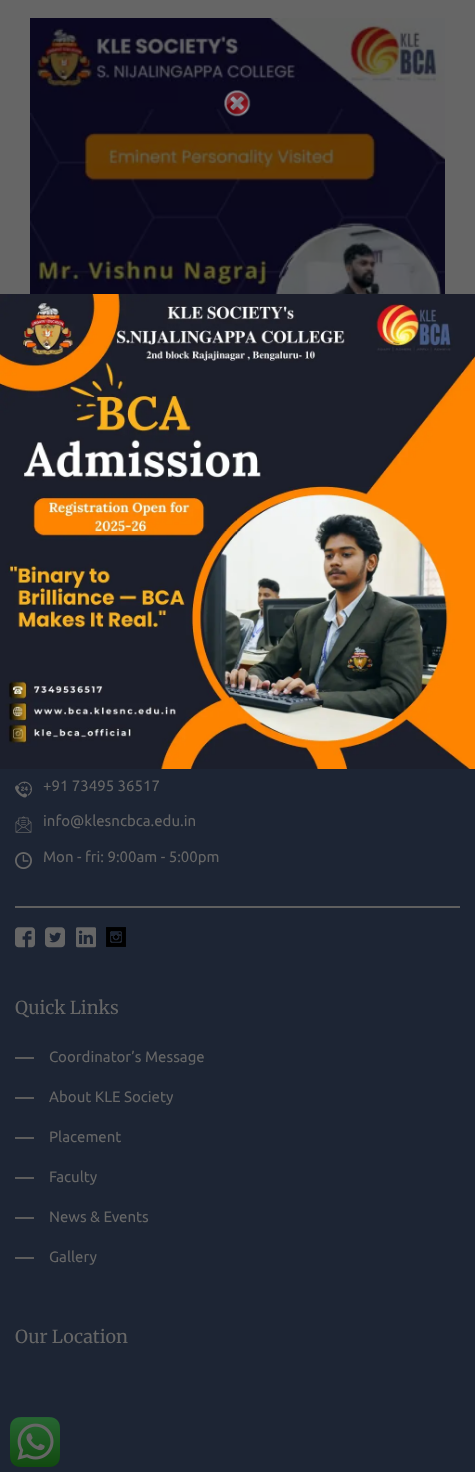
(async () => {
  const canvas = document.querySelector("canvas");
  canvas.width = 475;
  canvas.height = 1472;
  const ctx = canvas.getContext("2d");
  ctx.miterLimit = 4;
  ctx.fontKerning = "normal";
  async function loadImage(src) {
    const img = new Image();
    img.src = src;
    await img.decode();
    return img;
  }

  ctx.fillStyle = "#666666";
  ctx.fillRect(0, 0, 475, 1472);
  ctx.drawImage(await loadImage("img/1.png"), 30, 18, 415, 276);
  ctx.drawImage(await loadImage("img/2.png"), 224, 90, 27, 27);
  ctx.drawImage(await loadImage("img/3.png"), 0, 294, 475, 475);
  ctx.fillStyle = "#1d2534";
  ctx.fillRect(0, 769, 475, 703);
  ctx.drawImage(await loadImage("img/4.png"), 15, 781, 17, 17);
  ctx.drawImage(await loadImage("img/5.png"), 15, 816, 17, 17);
  ctx.drawImage(await loadImage("img/6.png"), 15, 852, 17, 18);
  ctx.fillStyle = "#5f5f5f";
  ctx.fillRect(15, 906, 445, 2);
  ctx.drawImage(await loadImage("img/7.png"), 15, 927, 20, 21);
  ctx.drawImage(await loadImage("img/8.png"), 45, 927, 20, 21);
  ctx.drawImage(await loadImage("img/9.png"), 76, 927, 20, 21);
  ctx.drawImage(await loadImage("img/10.png"), 106, 927, 20, 20);
  for (const [x, y, w, h, color] of [
    [15, 1057, 19, 2, "#5c5c5c"],
    [15, 1097, 19, 2, "#5c5c5c"],
    [15, 1137, 19, 2, "#5c5c5c"],
    [15, 1177, 19, 2, "#5c5c5c"],
    [15, 1217, 19, 2, "#5c5c5c"],
    [15, 1257, 19, 2, "#5c5c5c"],
  ]) {
    ctx.fillStyle = color;
    ctx.fillRect(x, y, w, h);
  }
  ctx.drawImage(await loadImage("img/11.png"), 10, 1417, 50, 50);
  ctx.font = "15px Ubuntu";
  ctx.fillStyle = "#666666";
  for (const [text, x, y] of [
    ["+91 73495 36517", 43, 791],
    ["info@klesncbca.edu.in", 43, 826],
    ["Mon - fri: 9:00am - 5:00pm", 43, 862],
  ]) {
    ctx.fillText(text, x, y);
  }
  ctx.font = "18px Merriweather";
  ctx.fillText("Quick Links", 15, 1014);
  ctx.font = "15px Ubuntu";
  for (const [text, x, y] of [
    ["Coordinator’s Message", 49, 1062],
    ["About KLE Society", 49, 1102],
    ["Placement", 49, 1142],
    ["Faculty", 49, 1182],
    ["News & Events", 49, 1222],
    ["Gallery", 49, 1262],
  ]) {
    ctx.fillText(text, x, y);
  }
  ctx.font = "18px Merriweather";
  ctx.fillText("Our Location", 15, 1343);
})();
